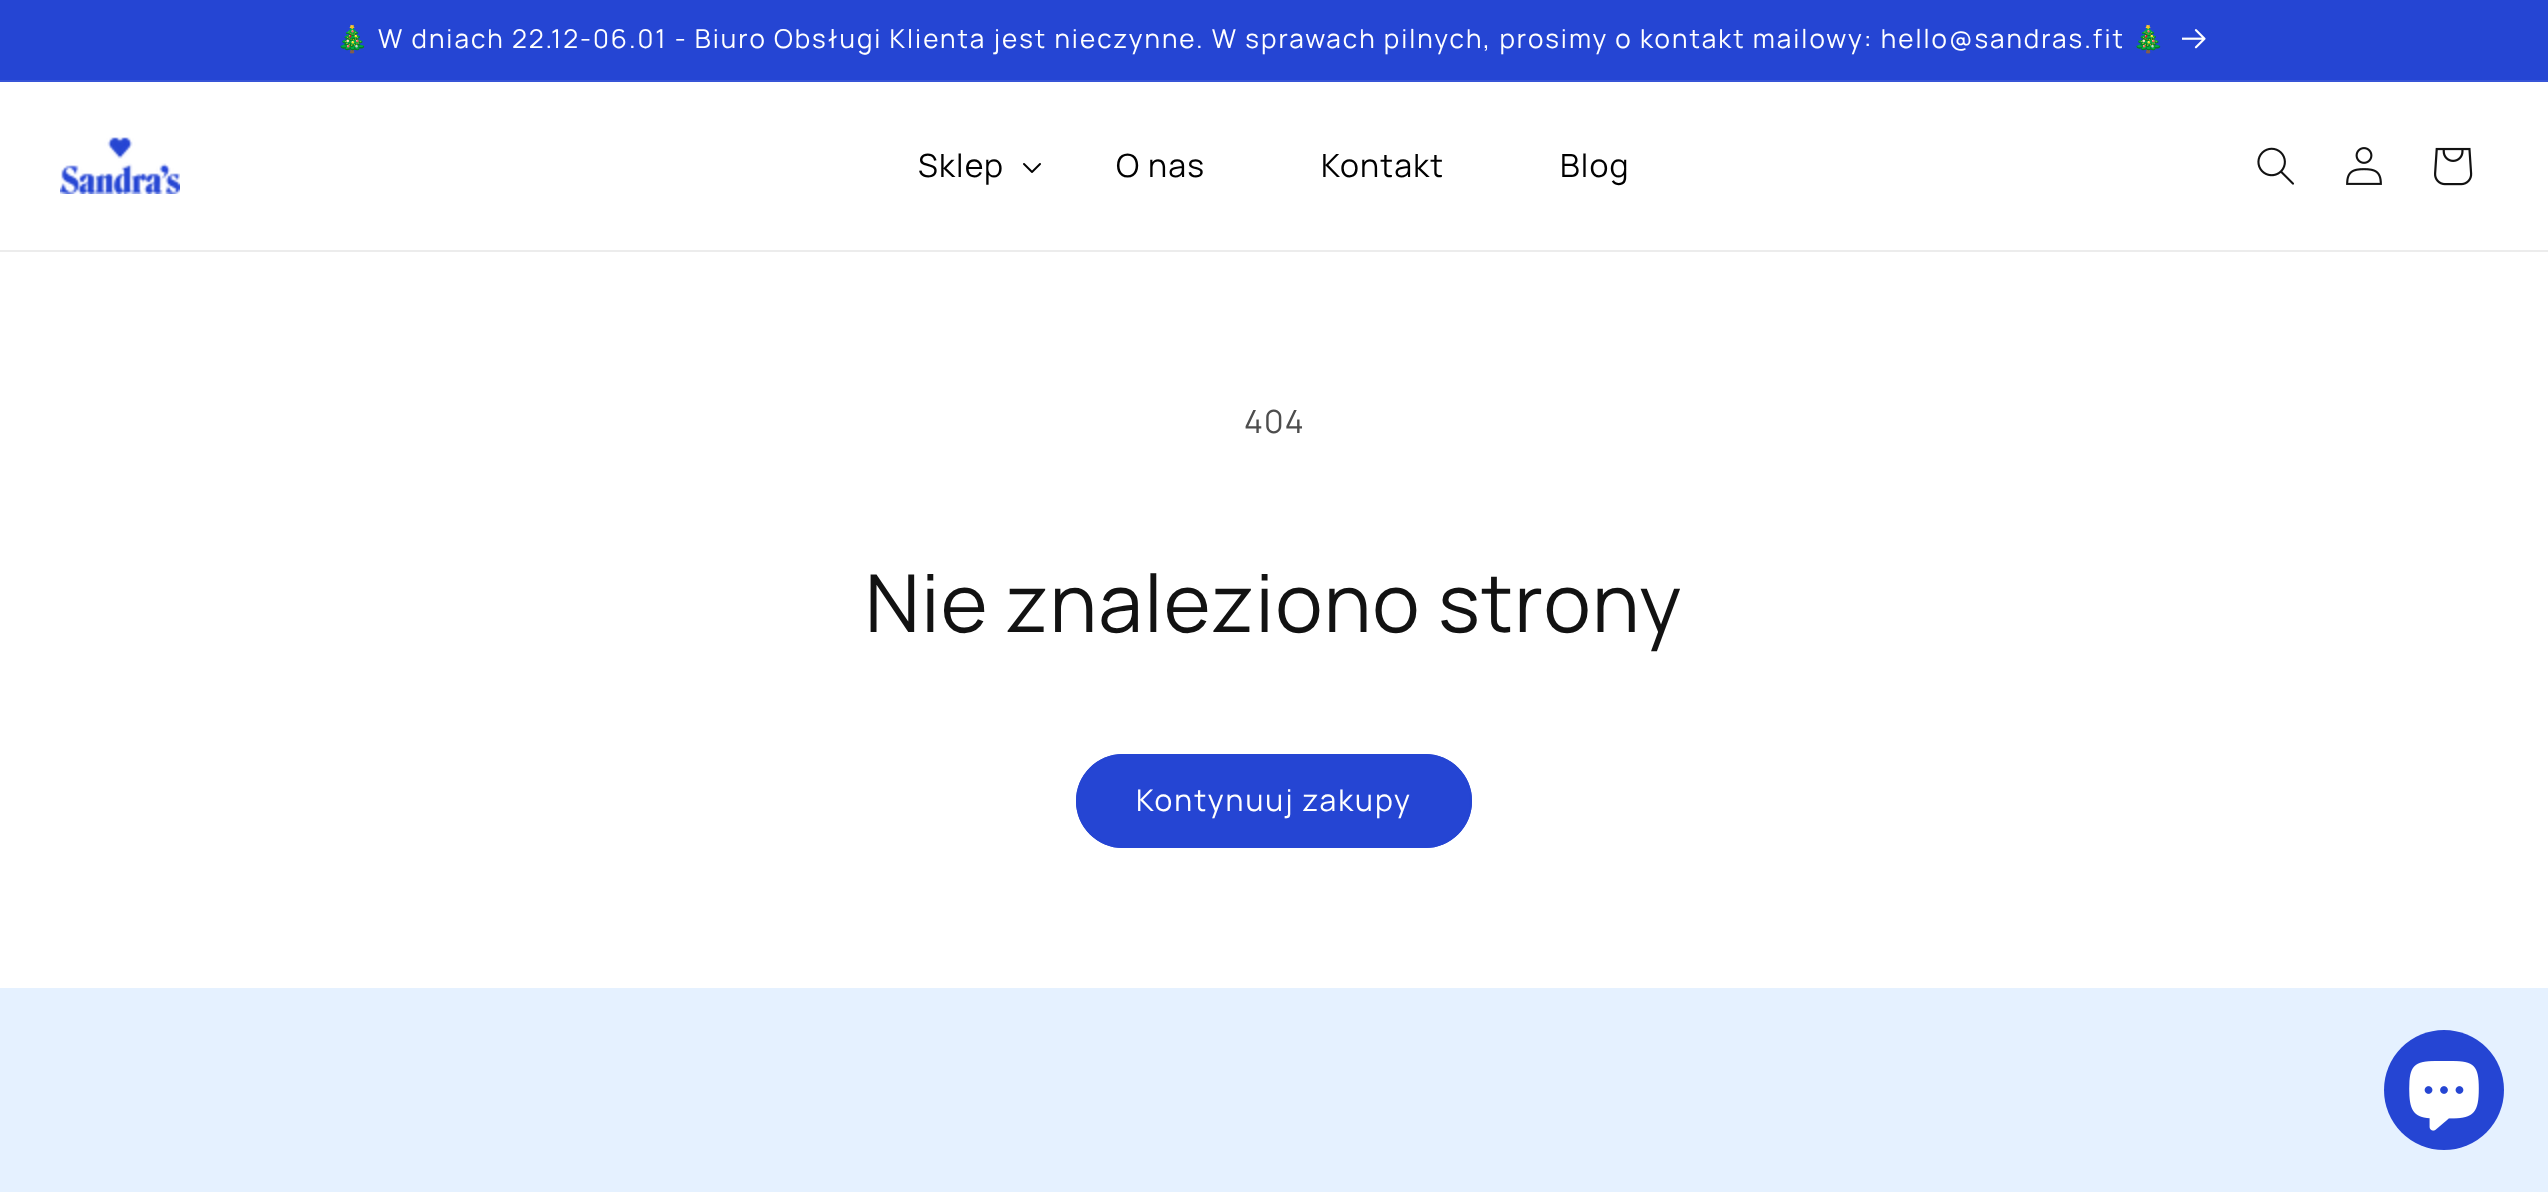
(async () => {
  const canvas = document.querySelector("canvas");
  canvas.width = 2548;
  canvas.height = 1192;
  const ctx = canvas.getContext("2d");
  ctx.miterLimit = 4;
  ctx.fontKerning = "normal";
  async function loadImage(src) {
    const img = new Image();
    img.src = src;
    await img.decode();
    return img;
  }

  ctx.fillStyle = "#ffffff";
  ctx.fillRect(0, 0, 2548, 1192);
  ctx.fillStyle = "#2545d3";
  ctx.fillRect(0, 0, 2548, 80);
  ctx.fillStyle = "#3654d7";
  ctx.fillRect(0, 80, 2548, 2);
  ctx.drawImage(await loadImage("img/1.png"), 2182, 29, 24, 20);
  ctx.fillStyle = "#ececec";
  ctx.fillRect(0, 250, 2548, 2);
  ctx.drawImage(await loadImage("img/2.png"), 60, 137, 120, 57);
  ctx.drawImage(await loadImage("img/3.png"), 1023, 163, 18, 10);
  ctx.drawImage(await loadImage("img/4.png"), 2257, 147, 37, 38);
  ctx.drawImage(await loadImage("img/5.png"), 2346, 147, 36, 38);
  ctx.drawImage(await loadImage("img/6.png"), 2434, 147, 39, 39);
  ctx.fillStyle = "#2545d3";
  ctx.beginPath();
  ctx.roundRect(1076, 754, 396, 94, 47);
  ctx.fill();
  ctx.beginPath();
  ctx.roundRect(1077, 755, 394, 92, 46);
  ctx.strokeStyle = "#2545d3";
  ctx.lineWidth = 2;
  ctx.stroke();
  ctx.fillStyle = "#e5f1ff";
  ctx.fillRect(0, 988, 2548, 204);
  ctx.fillStyle = "#2545d3";
  ctx.beginPath();
  ctx.arc(2444, 1090, 60, 0, Math.PI * 2);
  ctx.fill();
  ctx.drawImage(await loadImage("img/7.png"), 2409, 1061, 70, 70);
  ctx.letterSpacing = "2px";
  ctx.font = "26px Noto Color Emoji";
  ctx.fillStyle = "#ffffff";
  ctx.fillText("🎄", 336, 48);
  ctx.font = "26px Manrope";
  ctx.fillText("W dniach 22.12-06.01 - Biuro Obsługi Klienta jest nieczynne. W sprawach pilnych, prosimy o kontakt mailowy: hello@sandras.fit", 378, 48);
  ctx.font = "26px Noto Color Emoji";
  ctx.fillText("🎄", 2132, 48);
  ctx.letterSpacing = "1.2px";
  ctx.font = "32px Manrope";
  ctx.fillStyle = "#000000";
  for (const [text, x, y] of [
    ["Sklep", 918, 177],
    ["O nas", 1116, 177],
    ["Kontakt", 1321, 177],
    ["Blog", 1560, 177],
  ]) {
    ctx.fillText(text, x, y);
  }
  ctx.fillStyle = "#4d4d4d";
  ctx.fillText("404", 1244, 433);
  ctx.font = "80px Manrope";
  ctx.fillStyle = "#121212";
  ctx.fillText("Nie znaleziono strony", 865, 632);
  ctx.letterSpacing = "2px";
  ctx.font = "30px Manrope";
  ctx.fillStyle = "#ffffff";
  ctx.fillText("Kontynuuj zakupy", 1136, 811);
})();
